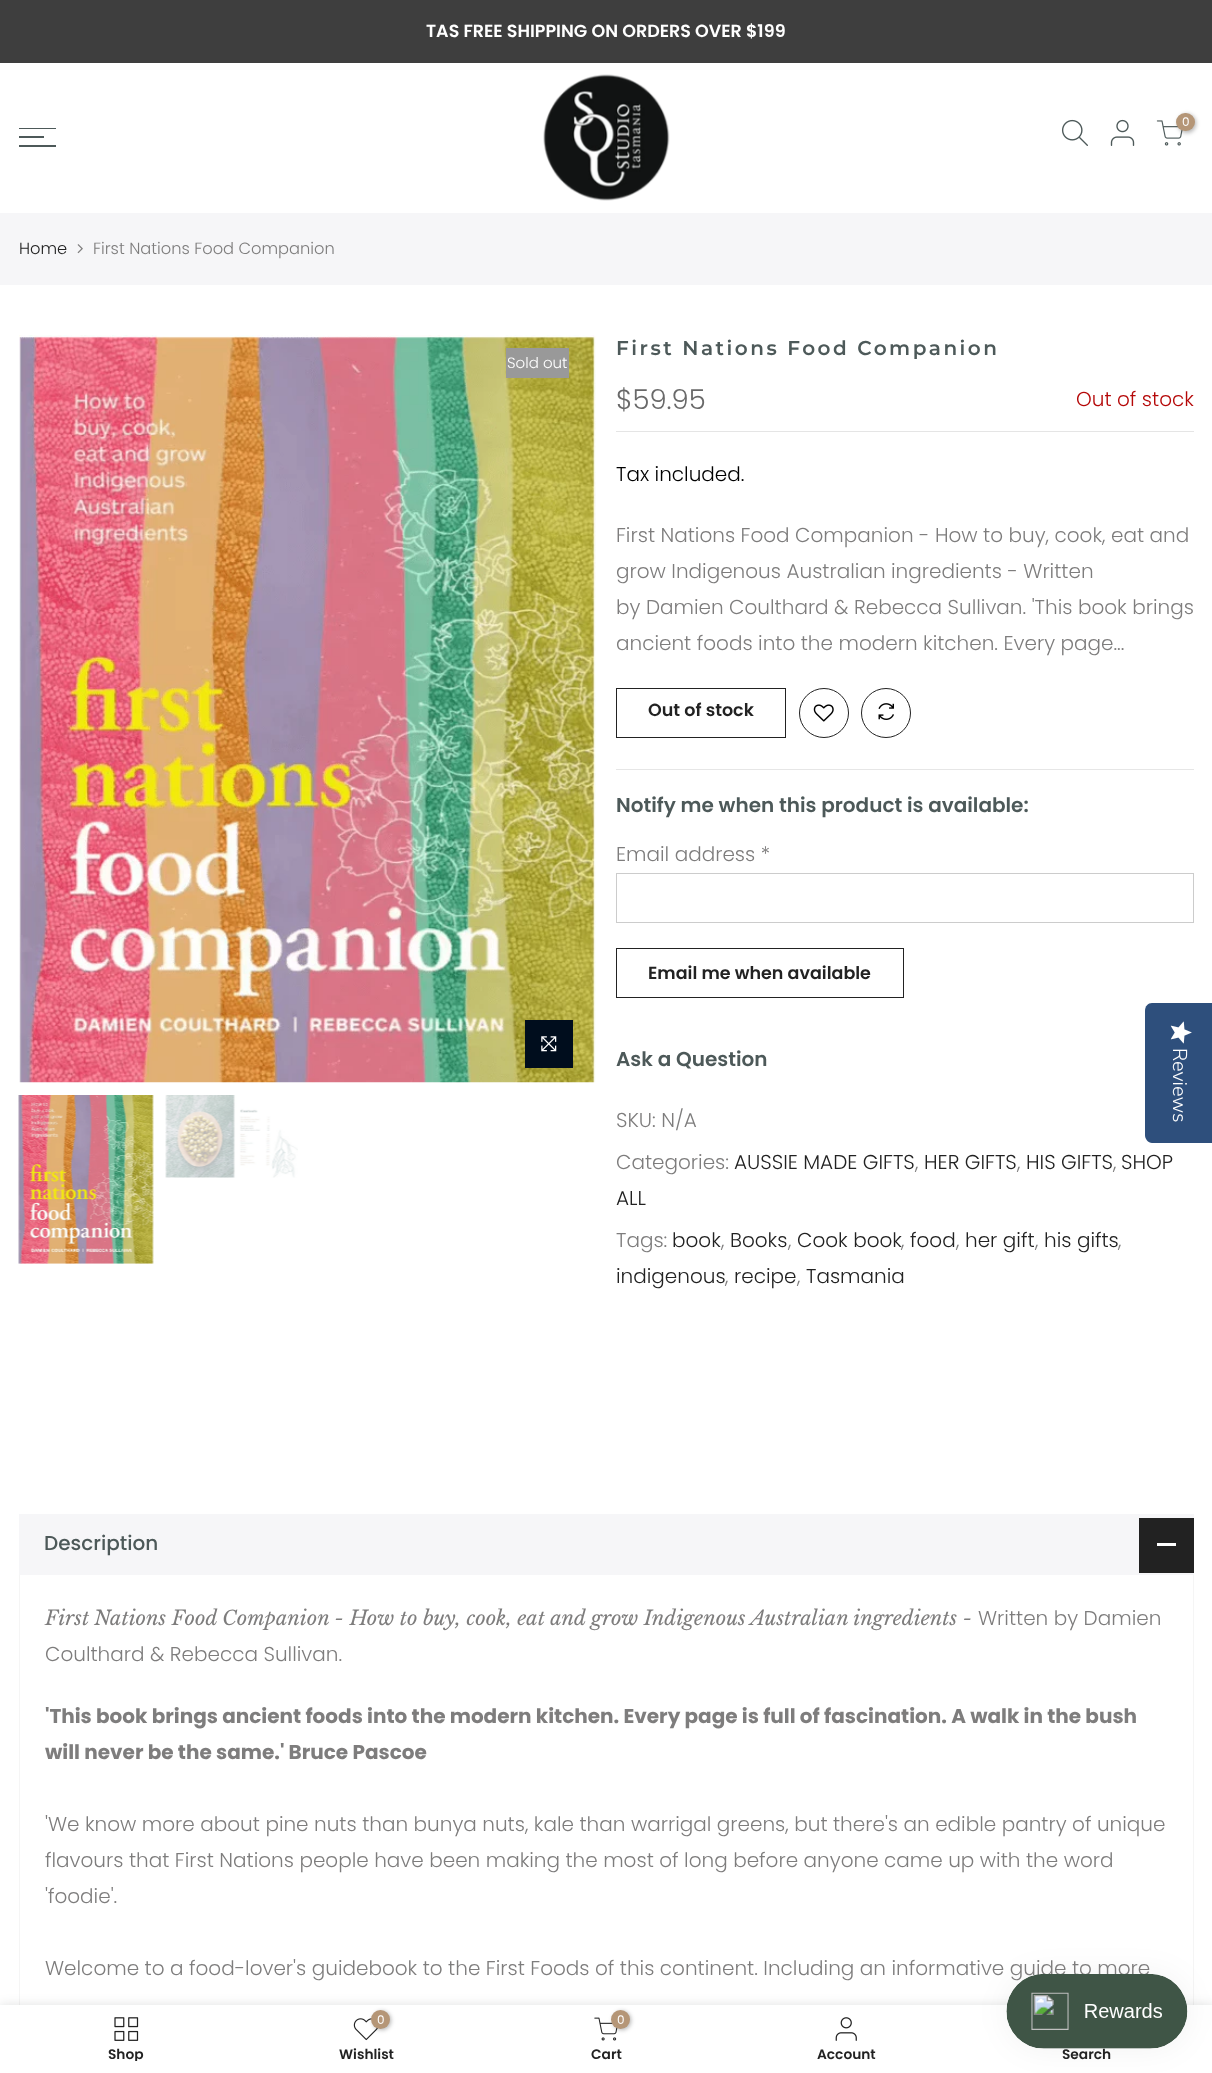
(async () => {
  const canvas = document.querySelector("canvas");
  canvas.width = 1212;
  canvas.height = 2073;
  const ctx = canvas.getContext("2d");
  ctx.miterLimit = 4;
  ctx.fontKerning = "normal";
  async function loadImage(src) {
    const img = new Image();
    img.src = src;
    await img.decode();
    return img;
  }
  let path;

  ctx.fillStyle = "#ffffff";
  ctx.fillRect(0, 0, 1212, 2073);
  ctx.fillStyle = "#3e3e3e";
  ctx.fillRect(0, 0, 1212, 63);
  ctx.drawImage(await loadImage("img/1.png"), 543, 74, 127, 127);
  ctx.drawImage(await loadImage("img/2.png"), 1061, 119, 27, 27);
  ctx.drawImage(await loadImage("img/3.png"), 1110, 119, 25, 27);
  ctx.drawImage(await loadImage("img/4.png"), 1156, 120, 27, 26);
  ctx.fillStyle = "rgba(0, 0, 0, 0.3)";
  ctx.filter = "blur(2px)";
  ctx.beginPath();
  ctx.roundRect(1178, 114, 18, 19, 9);
  ctx.fill();
  ctx.filter = "none";
  ctx.fillStyle = "#b59677";
  ctx.beginPath();
  ctx.roundRect(1176, 113, 19, 18, 9);
  ctx.fill();
  for (const [x, y, w, h, color] of [
    [19, 128, 37, 1, "#4d5959"],
    [19, 136, 25, 2, "#4d5959"],
    [19, 145, 37, 2, "#4d5959"],
    [0, 213, 1212, 72, "#f6f6f8"],
  ]) {
    ctx.fillStyle = color;
    ctx.fillRect(x, y, w, h);
  }
  ctx.drawImage(await loadImage("img/5.png"), 77, 244, 6, 10);
  ctx.drawImage(await loadImage("img/6.png"), 19, 335, 577, 748);
  ctx.fillStyle = "#999999";
  ctx.fillRect(506, 348, 63, 30);
  ctx.fillStyle = "#000d1d";
  ctx.fillRect(525, 1020, 48, 48);
  ctx.drawImage(await loadImage("img/7.png"), 541, 1036, 16, 16);
  ctx.drawImage(await loadImage("img/8.png"), 18, 1095, 136, 169);
  ctx.drawImage(await loadImage("img/9.png"), 165, 1095, 133, 83);
  ctx.fillStyle = "#e5e5e5";
  ctx.fillRect(616, 431, 578, 1);
  ctx.strokeStyle = "#222222";
  ctx.strokeRect(616.5, 688.5, 169, 49);
  ctx.beginPath();
  ctx.arc(824, 713, 24.5, 0, Math.PI * 2);
  ctx.stroke();
  ctx.drawImage(await loadImage("img/10.png"), 813, 704, 21, 18);
  ctx.beginPath();
  ctx.arc(886, 713, 24.5, 0, Math.PI * 2);
  ctx.stroke();
  ctx.drawImage(await loadImage("img/11.png"), 878, 703, 16, 17);
  ctx.fillStyle = "#e6e6e6";
  ctx.fillRect(616, 769, 578, 1);
  ctx.strokeStyle = "#cccccc";
  ctx.strokeRect(616.5, 873.5, 577, 49);
  ctx.strokeStyle = "#222222";
  ctx.strokeRect(616.5, 948.5, 287, 49);
  for (const [x, y, w, h, color] of [
    [19, 1514, 1175, 61, "#f6f6f8"],
    [1139, 1518, 55, 55, "#222222"],
    [1157, 1543, 19, 3, "#ffffff"],
    [1193, 1575, 1, 430, "#f5f5f5"],
    [19, 1575, 1, 430, "#f5f5f5"],
  ]) {
    ctx.fillStyle = color;
    ctx.fillRect(x, y, w, h);
  }
  ctx.fillStyle = "#2e4f7c";
  path = new Path2D("M1212 1003V1143H1152C1148 1143 1145 1139 1145 1135V1011C1145 1006 1148 1003 1152 1003Z");
  ctx.fill(path);
  ctx.drawImage(await loadImage("img/12.png"), 1170, 1021, 22, 23);
  ctx.fillStyle = "rgba(0, 0, 0, 0.12)";
  ctx.filter = "blur(5.5px)";
  ctx.beginPath();
  ctx.rect(0, 2005, 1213, 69);
  ctx.fill();
  ctx.filter = "none";
  ctx.fillStyle = "#ffffff";
  ctx.fillRect(0, 2005, 1212, 68);
  ctx.fillStyle = "rgba(0, 0, 0, 0.05)";
  ctx.filter = "blur(15.5px)";
  ctx.beginPath();
  ctx.roundRect(1006, 1974, 182, 75, 37.5);
  ctx.fill();
  ctx.filter = "none";
  ctx.drawImage(await loadImage("img/14.png"), 114, 2017, 25, 24);
  ctx.drawImage(await loadImage("img/15.png"), 353, 2018, 25, 23);
  ctx.fillStyle = "rgba(0, 0, 0, 0.3)";
  ctx.filter = "blur(2px)";
  ctx.beginPath();
  ctx.roundRect(373, 2011, 18, 19, 9);
  ctx.fill();
  ctx.filter = "none";
  ctx.fillStyle = "#b59677";
  ctx.beginPath();
  ctx.arc(380.5, 2019.5, 9.5, 0, Math.PI * 2);
  ctx.fill();
  ctx.drawImage(await loadImage("img/16.png"), 594, 2017, 24, 24);
  ctx.fillStyle = "rgba(0, 0, 0, 0.3)";
  ctx.filter = "blur(2px)";
  ctx.beginPath();
  ctx.roundRect(613, 2011, 18, 19, 9);
  ctx.fill();
  ctx.filter = "none";
  ctx.fillStyle = "#b59677";
  ctx.beginPath();
  ctx.arc(620.5, 2019.5, 9.5, 0, Math.PI * 2);
  ctx.fill();
  ctx.drawImage(await loadImage("img/17.png"), 835, 2017, 22, 24);
  ctx.font = "600 17.5px Poppins";
  ctx.fillStyle = "#ffffff";
  ctx.fillText("TAS FREE SHIPPING ON ORDERS OVER $199", 426, 37);
  ctx.font = "12px Poppins";
  ctx.fillText("0", 1182, 126);
  ctx.font = "300 16.25px Poppins";
  ctx.fillStyle = "#222222";
  ctx.fillText("Home", 19, 254);
  ctx.fillStyle = "#7e7d7d";
  ctx.fillText("First Nations Food Companion", 93, 254);
  ctx.font = "300 15px Poppins";
  ctx.fillStyle = "#ffffff";
  ctx.fillText("Sold out", 507, 368);
  ctx.letterSpacing = "2.5px";
  ctx.font = "600 20px Montserrat";
  ctx.fillStyle = "#4d5959";
  ctx.fillText("First Nations Food Companion", 616, 355);
  ctx.letterSpacing = "0px";
  ctx.font = "300 27.5px Poppins";
  ctx.fillStyle = "#696969";
  ctx.fillText("$59.95", 616, 409);
  ctx.font = "300 20px Poppins";
  ctx.fillStyle = "#b50808";
  ctx.fillText("Out of stock", 1076, 406);
  ctx.fillStyle = "#000000";
  ctx.fillText("Tax included.", 616, 481);
  ctx.fillStyle = "#7e7d7d";
  for (const [text, x, y] of [
    ["First Nations Food Companion - How to buy, cook, eat and", 616, 542],
    ["grow Indigenous Australian ingredients - Written", 616, 578],
    ["by Damien Coulthard & Rebecca Sullivan. 'This book brings", 616, 614],
    ["ancient foods into the modern kitchen. Every page...", 616, 650],
  ]) {
    ctx.fillText(text, x, y);
  }
  ctx.font = "600 17.5px Poppins";
  ctx.fillStyle = "#222222";
  ctx.fillText("Out of stock", 648, 716);
  ctx.font = "600 20px Poppins";
  ctx.fillStyle = "#4d5959";
  ctx.fillText("Notify me when this product is available:", 616, 812);
  ctx.font = "300 20px Poppins";
  ctx.fillStyle = "#7e7d7d";
  ctx.fillText("Email address *", 616, 861);
  ctx.font = "600 17.5px Poppins";
  ctx.fillStyle = "#222222";
  ctx.fillText("Email me when available", 648, 979);
  ctx.font = "600 20px Poppins";
  ctx.fillStyle = "#4d5959";
  ctx.fillText("Ask a Question", 616, 1066);
  ctx.font = "300 20px Poppins";
  ctx.fillStyle = "#7e7d7d";
  ctx.fillText("SKU: N/A", 616, 1127);
  ctx.fillText("Categories:", 616, 1169);
  ctx.fillStyle = "#222222";
  ctx.fillText("AUSSIE MADE GIFTS", 734, 1169);
  ctx.fillStyle = "#7e7d7d";
  ctx.fillText(",", 915, 1169);
  ctx.fillStyle = "#222222";
  ctx.fillText("HER GIFTS", 924, 1169);
  ctx.fillStyle = "#7e7d7d";
  ctx.fillText(",", 1017, 1169);
  ctx.fillStyle = "#222222";
  ctx.fillText("HIS GIFTS", 1026, 1169);
  ctx.fillStyle = "#7e7d7d";
  ctx.fillText(",", 1113, 1169);
  ctx.fillStyle = "#222222";
  ctx.fillText("SHOP", 1121, 1169);
  ctx.fillText("ALL", 616, 1205);
  ctx.fillStyle = "#7e7d7d";
  ctx.fillText("Tags:", 616, 1247);
  ctx.fillStyle = "#222222";
  ctx.fillText("book", 672, 1247);
  ctx.fillStyle = "#7e7d7d";
  ctx.fillText(",", 721, 1247);
  ctx.fillStyle = "#222222";
  ctx.fillText("Books", 730, 1247);
  ctx.fillStyle = "#7e7d7d";
  ctx.fillText(",", 788, 1247);
  ctx.fillStyle = "#222222";
  ctx.fillText("Cook book", 797, 1247);
  ctx.fillStyle = "#7e7d7d";
  ctx.fillText(",", 901, 1247);
  ctx.fillStyle = "#222222";
  ctx.fillText("food", 910, 1247);
  ctx.fillStyle = "#7e7d7d";
  ctx.fillText(",", 956, 1247);
  ctx.fillStyle = "#222222";
  ctx.fillText("her gift", 965, 1247);
  ctx.fillStyle = "#7e7d7d";
  ctx.fillText(",", 1035, 1247);
  ctx.fillStyle = "#222222";
  ctx.fillText("his gifts", 1044, 1247);
  ctx.fillStyle = "#7e7d7d";
  ctx.fillText(",", 1118, 1247);
  ctx.fillStyle = "#222222";
  ctx.fillText("indigenous", 616, 1283);
  ctx.fillStyle = "#7e7d7d";
  ctx.fillText(",", 725, 1283);
  ctx.fillStyle = "#222222";
  ctx.fillText("recipe", 734, 1283);
  ctx.fillStyle = "#7e7d7d";
  ctx.fillText(",", 797, 1283);
  ctx.fillStyle = "#222222";
  ctx.fillText("Tasmania", 806, 1283);
  ctx.font = "500 20px Poppins";
  ctx.fillStyle = "#4d5959";
  ctx.fillText("Description", 44, 1550);
  ctx.font = "italic 20px Libre Baskerville";
  ctx.fillStyle = "#7e7d7d";
  ctx.fillText("First Nations Food Companion - How to buy, cook, eat and grow Indigenous Australian ingredients -", 45, 1625);
  ctx.font = "300 20px Poppins";
  ctx.fillText("Written by Damien", 978, 1625);
  ctx.fillText("Coulthard & Rebecca Sullivan.", 45, 1661);
  ctx.font = "bold 20px Poppins";
  ctx.fillText("'This book brings ancient foods into the modern kitchen. Every page is full of fascination. A walk in the bush", 45, 1723);
  ctx.fillText("will never be the same.' Bruce Pascoe", 45, 1759);
  ctx.font = "300 20px Poppins";
  for (const [text, x, y] of [
    ["'We know more about pine nuts than bunya nuts, kale than warrigal greens, but there's an edible pantry of unique", 45, 1831],
    ["flavours that First Nations people have been making the most of long before anyone came up with the word", 45, 1867],
    ["'foodie'.", 45, 1903],
    ["Welcome to a food-lover's guidebook to the First Foods of this continent. Including an informative guide to more", 45, 1975],
  ]) {
    ctx.fillText(text, x, y);
  }
  ctx.font = "300 20px Nunito Sans";
  ctx.fillStyle = "#ffffff";
  ctx.save();
  ctx.translate(1173, 1048);
  ctx.rotate(90 * Math.PI / 180);
  ctx.fillText("Reviews", 0, 0);
  ctx.restore();
  ctx.save();
  ctx.beginPath();
  ctx.rect(19, 2048, 215, 13);
  ctx.clip();
  ctx.font = "600 13.75px Poppins";
  ctx.fillStyle = "#222222";
  ctx.fillText("Shop", 108, 2059);
  ctx.restore();
  ctx.font = "12px Poppins";
  ctx.fillText("0", 377, 2024);
  ctx.font = "600 13.75px Poppins";
  ctx.fillStyle = "#222222";
  ctx.fillText("Wishlist", 339, 2059);
  ctx.font = "12px Poppins";
  ctx.fillStyle = "#ffffff";
  ctx.fillText("0", 617, 2024);
  ctx.font = "600 13.75px Poppins";
  ctx.fillStyle = "#222222";
  for (const [text, x, y] of [
    ["Cart", 591, 2059],
    ["Account", 817, 2059],
    ["Search", 1062, 2059],
  ]) {
    ctx.fillText(text, x, y);
  }
  ctx.drawImage(await loadImage("img/13.png"), 1006, 1974, 182, 75);
})();
